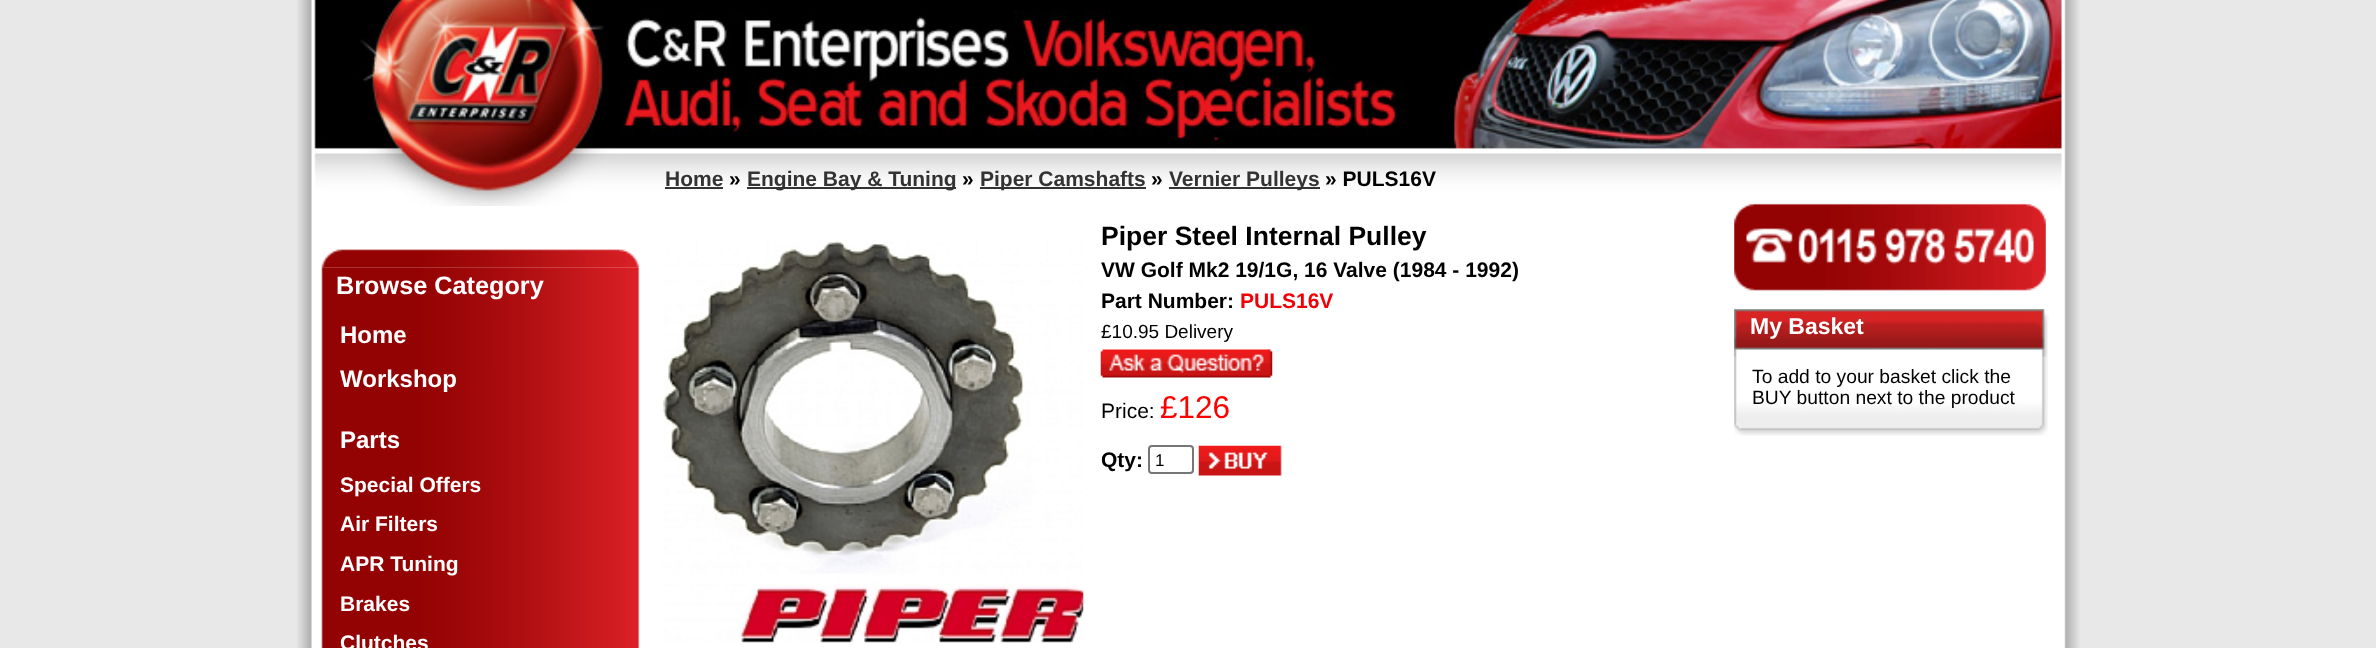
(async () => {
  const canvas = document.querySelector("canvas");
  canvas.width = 2376;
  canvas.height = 648;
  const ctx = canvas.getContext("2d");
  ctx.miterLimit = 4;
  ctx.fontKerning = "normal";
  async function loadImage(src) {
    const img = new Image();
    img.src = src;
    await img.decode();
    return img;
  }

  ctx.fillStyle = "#e8e8e8";
  ctx.fillRect(0, 0, 2376, 648);
  ctx.drawImage(await loadImage("img/1.png"), 297, 0, 1783, 648);
  ctx.drawImage(await loadImage("img/2.png"), 314, 0, 1749, 206);
  for (const [x, y, w, h, color] of [
    [665, 187, 58, 2, "#333333"],
    [747, 187, 209, 2, "#333333"],
    [980, 187, 166, 2, "#333333"],
    [1169, 187, 151, 2, "#333333"],
  ]) {
    ctx.fillStyle = color;
    ctx.fillRect(x, y, w, h);
  }
  ctx.drawImage(await loadImage("img/3.png"), 321, 249, 319, 19);
  ctx.drawImage(await loadImage("img/4.png"), 321, 267, 319, 381);
  ctx.drawImage(await loadImage("img/5.png"), 663, 240, 421, 403);
  ctx.drawImage(await loadImage("img/6.png"), 1100, 349, 173, 29);
  ctx.beginPath();
  ctx.roundRect(1149, 446, 44, 27, 3);
  ctx.strokeStyle = "#767676";
  ctx.lineWidth = 2;
  ctx.stroke();
  ctx.drawImage(await loadImage("img/7.png"), 1198, 445, 84, 31);
  ctx.drawImage(await loadImage("img/8.png"), 1734, 203, 312, 88);
  ctx.drawImage(await loadImage("img/9.png"), 1734, 309, 314, 127);
  ctx.drawImage(await loadImage("img/10.png"), 1734, 309, 315, 48);
  ctx.font = "bold 21px Liberation Sans";
  ctx.fillText("Home", 665, 186);
  ctx.fillStyle = "#000000";
  ctx.fillText("»", 729, 186);
  ctx.fillStyle = "#333333";
  ctx.fillText("Engine Bay & Tuning", 747, 186);
  ctx.fillStyle = "#000000";
  ctx.fillText("»", 962, 186);
  ctx.fillStyle = "#333333";
  ctx.fillText("Piper Camshafts", 980, 186);
  ctx.fillStyle = "#000000";
  ctx.fillText("»", 1151, 186);
  ctx.fillStyle = "#333333";
  ctx.fillText("Vernier Pulleys", 1169, 186);
  ctx.fillStyle = "#000000";
  ctx.fillText("» PULS16V", 1325, 186);
  ctx.font = "bold 25.25px Liberation Sans";
  ctx.fillStyle = "#ffffff";
  ctx.fillText("Browse Category", 336, 294);
  ctx.font = "bold 24px Liberation Sans";
  for (const [text, x, y] of [
    ["Home", 340, 343],
    ["Workshop", 340, 387],
    ["Parts", 340, 448],
  ]) {
    ctx.fillText(text, x, y);
  }
  ctx.font = "bold 21px Liberation Sans";
  for (const [text, x, y] of [
    ["Special Offers", 340, 492],
    ["Air Filters", 340, 531],
    ["APR Tuning", 340, 571],
    ["Brakes", 340, 611],
    ["Clutches", 340, 650],
  ]) {
    ctx.fillText(text, x, y);
  }
  ctx.font = "bold 26.5px Liberation Sans";
  ctx.fillStyle = "#000000";
  ctx.fillText("Piper Steel Internal Pulley", 1101, 245);
  ctx.font = "bold 21px Liberation Sans";
  ctx.fillText("VW Golf Mk2 19/1G, 16 Valve (1984 - 1992)", 1101, 277);
  ctx.fillText("Part Number:", 1101, 308);
  ctx.fillStyle = "#f00006";
  ctx.fillText("PULS16V", 1240, 308);
  ctx.font = "19px Liberation Sans";
  ctx.fillStyle = "#000000";
  ctx.fillText("£10.95 Delivery", 1101, 338);
  ctx.font = "21px Liberation Sans";
  ctx.fillText("Price:", 1101, 418);
  ctx.font = "31.5px Liberation Sans";
  ctx.fillStyle = "#ff0000";
  ctx.fillText("£126", 1160, 418);
  ctx.font = "bold 21px Liberation Sans";
  ctx.fillStyle = "#000000";
  ctx.fillText("Qty:", 1101, 467);
  ctx.font = "17px Liberation Sans";
  ctx.fillText("1", 1155, 466);
  ctx.font = "bold 23px Liberation Sans";
  ctx.fillStyle = "#ffffff";
  ctx.fillText("My Basket", 1750, 334);
  ctx.font = "19.25px Liberation Sans";
  ctx.fillStyle = "#000000";
  ctx.fillText("To add to your basket click the", 1752, 383);
  ctx.fillText("BUY button next to the product", 1752, 404);
})();
